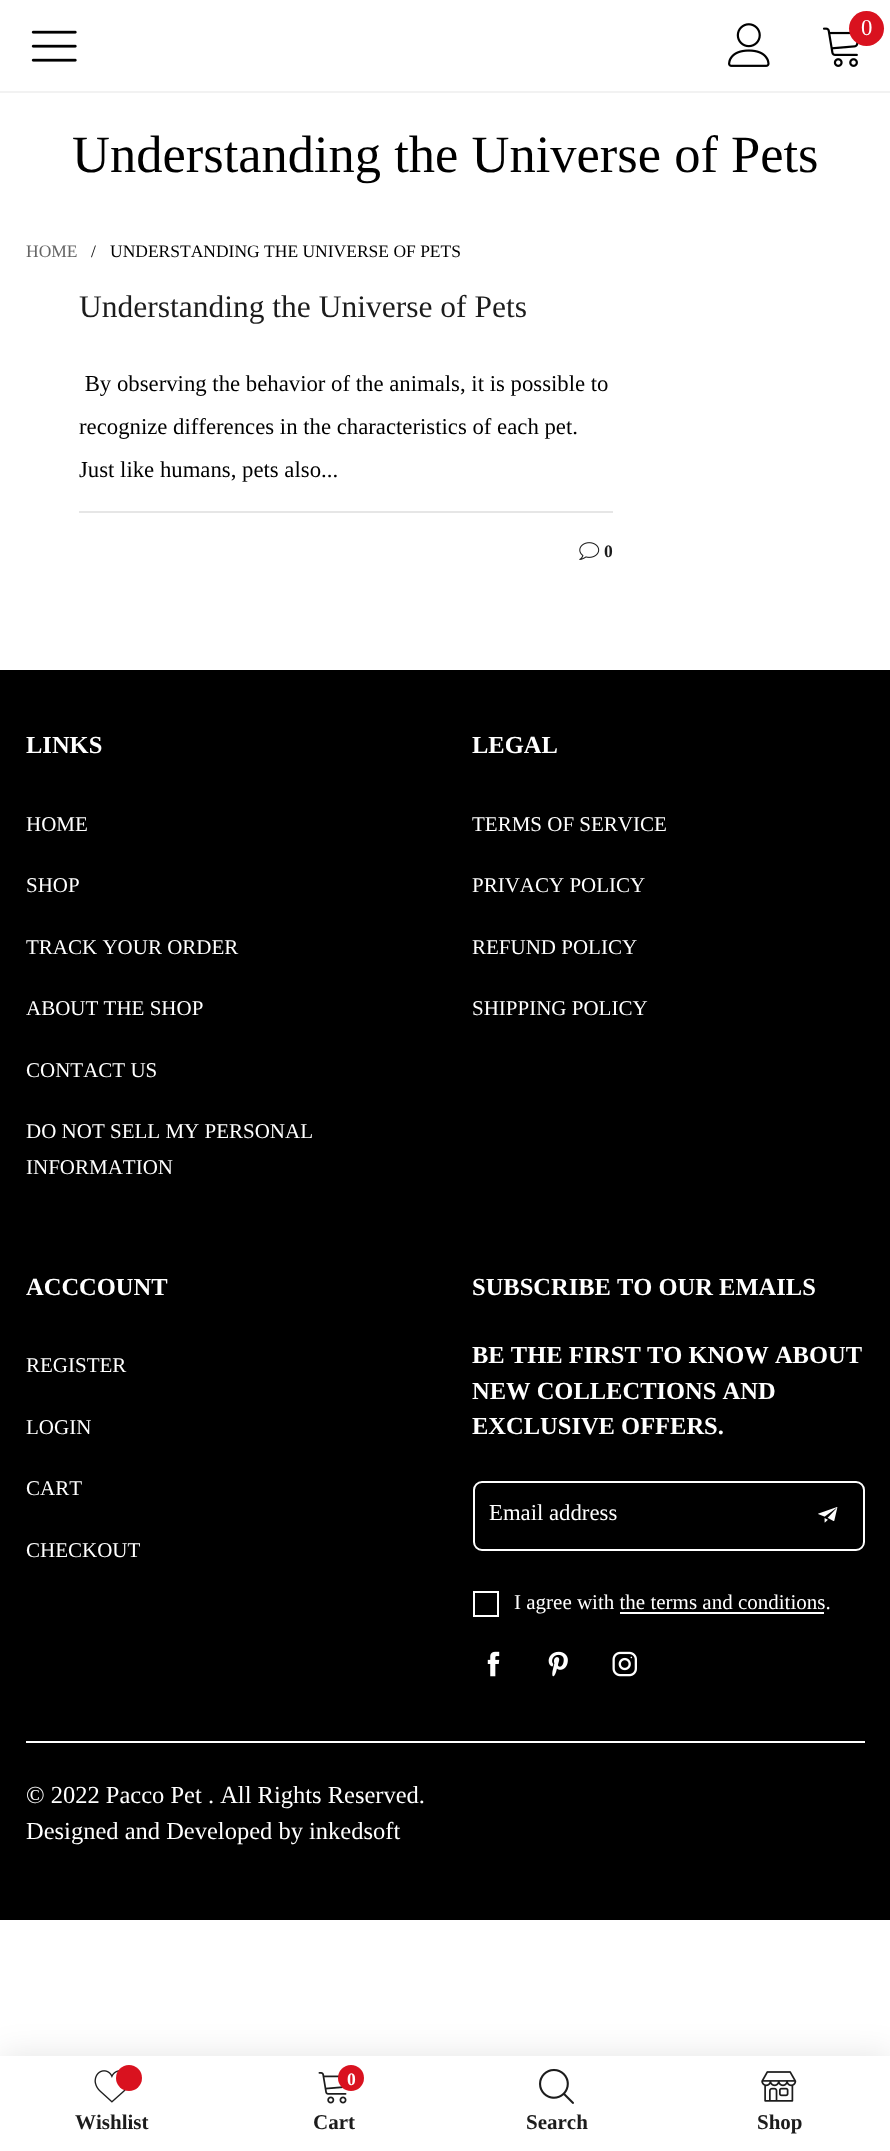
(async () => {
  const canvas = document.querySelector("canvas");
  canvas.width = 890;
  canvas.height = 2151;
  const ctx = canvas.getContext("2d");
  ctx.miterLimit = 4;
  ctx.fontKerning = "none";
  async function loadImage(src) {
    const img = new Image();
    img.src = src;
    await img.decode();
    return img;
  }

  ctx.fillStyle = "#ffffff";
  ctx.fillRect(0, 0, 890, 2151);
  ctx.fillStyle = "#f2f2f2";
  ctx.fillRect(0, 91, 890, 2);
  ctx.drawImage(await loadImage("img/1.png"), 728, 23, 42, 44);
  ctx.drawImage(await loadImage("img/2.png"), 822, 27, 37, 40);
  ctx.fillStyle = "#d9121f";
  ctx.beginPath();
  ctx.arc(866.5, 28.5, 17.5, 0, Math.PI * 2);
  ctx.fill();
  ctx.drawImage(await loadImage("img/3.png"), 31, 30, 46, 32);
  ctx.fillStyle = "#e6e6e6";
  ctx.fillRect(79, 511, 534, 2);
  ctx.drawImage(await loadImage("img/4.png"), 579, 542, 21, 18);
  ctx.fillStyle = "#000000";
  ctx.fillRect(0, 670, 890, 1250);
  ctx.beginPath();
  ctx.roundRect(474, 1482, 390, 68, 8);
  ctx.strokeStyle = "#ffffff";
  ctx.lineWidth = 2;
  ctx.stroke();
  ctx.drawImage(await loadImage("img/5.png"), 818, 1507, 20, 16);
  ctx.strokeRect(474, 1592, 24, 24);
  ctx.fillStyle = "#ffffff";
  ctx.fillRect(620, 1612, 204, 2);
  ctx.drawImage(await loadImage("img/6.png"), 487, 1651, 13, 26);
  ctx.drawImage(await loadImage("img/7.png"), 548, 1651, 20, 26);
  ctx.drawImage(await loadImage("img/8.png"), 612, 1651, 25, 26);
  ctx.fillRect(26, 1741, 839, 2);
  ctx.fillStyle = "rgba(0, 0, 0, 0.1)";
  ctx.filter = "blur(16.5px)";
  ctx.beginPath();
  ctx.rect(0, 2055, 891, 96);
  ctx.fill();
  ctx.filter = "none";
  ctx.fillStyle = "#ffffff";
  ctx.fillRect(0, 2056, 890, 95);
  ctx.drawImage(await loadImage("img/9.png"), 94, 2070, 32, 33);
  ctx.fillStyle = "#d9121f";
  ctx.beginPath();
  ctx.arc(129, 2078, 13, 0, Math.PI * 2);
  ctx.fill();
  ctx.drawImage(await loadImage("img/10.png"), 318, 2072, 29, 32);
  ctx.beginPath();
  ctx.arc(351, 2078, 13, 0, Math.PI * 2);
  ctx.fill();
  ctx.drawImage(await loadImage("img/11.png"), 539, 2068, 35, 36);
  ctx.drawImage(await loadImage("img/12.png"), 761, 2071, 36, 31);
  ctx.font = "22.75px Liberation Serif";
  ctx.fillStyle = "#ffffff";
  ctx.fillText("0", 861, 35);
  ctx.font = "52.5px Liberation Serif";
  ctx.fillStyle = "#000000";
  ctx.fillText("Understanding the Universe of Pets", 72, 172);
  ctx.font = "17.5px Liberation Serif";
  ctx.fillStyle = "#666666";
  ctx.fillText("HOME", 26, 257);
  ctx.fillStyle = "#000000";
  ctx.fillText("/", 91, 257);
  ctx.fillText("UNDERSTANDING THE UNIVERSE OF PETS", 110, 257);
  ctx.font = "31.5px Liberation Serif";
  ctx.fillStyle = "#1c1c1c";
  ctx.fillText("Understanding the Universe of Pets", 79, 317);
  ctx.font = "22.75px Liberation Serif";
  ctx.fillStyle = "#000000";
  for (const [text, x, y] of [
    [" By observing the behavior of the animals, it is possible to", 79, 391],
    ["recognize differences in the characteristics of each pet.", 79, 434],
    ["Just like humans, pets also...", 79, 477],
  ]) {
    ctx.fillText(text, x, y);
  }
  ctx.font = "bold 17.5px Liberation Serif";
  ctx.fillStyle = "#1c1c1c";
  ctx.fillText("0", 604, 557);
  ctx.font = "bold 24.5px Liberation Serif";
  ctx.fillStyle = "#ffffff";
  ctx.fillText("LINKS", 26, 753);
  ctx.font = "21px Liberation Serif";
  for (const [text, x, y] of [
    ["HOME", 26, 831],
    ["SHOP", 26, 892],
    ["TRACK YOUR ORDER", 26, 954],
    ["ABOUT THE SHOP", 26, 1015],
    ["CONTACT US", 26, 1077],
    ["DO NOT SELL MY PERSONAL", 26, 1138],
    ["INFORMATION", 26, 1174],
  ]) {
    ctx.fillText(text, x, y);
  }
  ctx.font = "bold 24.5px Liberation Serif";
  ctx.fillText("LEGAL", 472, 753);
  ctx.font = "21px Liberation Serif";
  for (const [text, x, y] of [
    ["TERMS OF SERVICE", 472, 831],
    ["PRIVACY POLICY", 472, 892],
    ["REFUND POLICY", 472, 954],
    ["SHIPPING POLICY", 472, 1015],
  ]) {
    ctx.fillText(text, x, y);
  }
  ctx.font = "bold 24.5px Liberation Serif";
  ctx.fillText("ACCCOUNT", 26, 1295);
  ctx.font = "21px Liberation Serif";
  for (const [text, x, y] of [
    ["REGISTER", 26, 1372],
    ["LOGIN", 26, 1434],
    ["CART", 26, 1495],
    ["CHECKOUT", 26, 1557],
  ]) {
    ctx.fillText(text, x, y);
  }
  ctx.font = "bold 24.5px Liberation Serif";
  for (const [text, x, y] of [
    ["SUBSCRIBE TO OUR EMAILS", 472, 1295],
    ["BE THE FIRST TO KNOW ABOUT", 472, 1363],
    ["NEW COLLECTIONS AND", 472, 1399],
    ["EXCLUSIVE OFFERS.", 472, 1434],
  ]) {
    ctx.fillText(text, x, y);
  }
  ctx.font = "22.75px Liberation Serif";
  ctx.fillText("Email address", 489, 1520);
  ctx.font = "21px Liberation Serif";
  ctx.fillText("I agree with the terms and conditions.", 514, 1609);
  ctx.font = "24.5px Liberation Serif";
  ctx.fillText("© 2022 Pacco Pet . All Rights Reserved.", 26, 1803);
  ctx.fillText("Designed and Developed by inkedsoft", 26, 1839);
  ctx.font = "bold 21px Liberation Serif";
  ctx.fillStyle = "#1c1c1c";
  ctx.fillText("Wishlist", 75, 2129);
  ctx.letterSpacing = "-2px";
  ctx.font = "bold 17.5px Liberation Serif";
  ctx.fillStyle = "#ffffff";
  ctx.fillText("0", 347, 2085);
  ctx.letterSpacing = "0px";
  ctx.font = "bold 21px Liberation Serif";
  ctx.fillStyle = "#1c1c1c";
  for (const [text, x, y] of [
    ["Cart", 313, 2129],
    ["Search", 526, 2129],
    ["Shop", 757, 2129],
  ]) {
    ctx.fillText(text, x, y);
  }
})();
